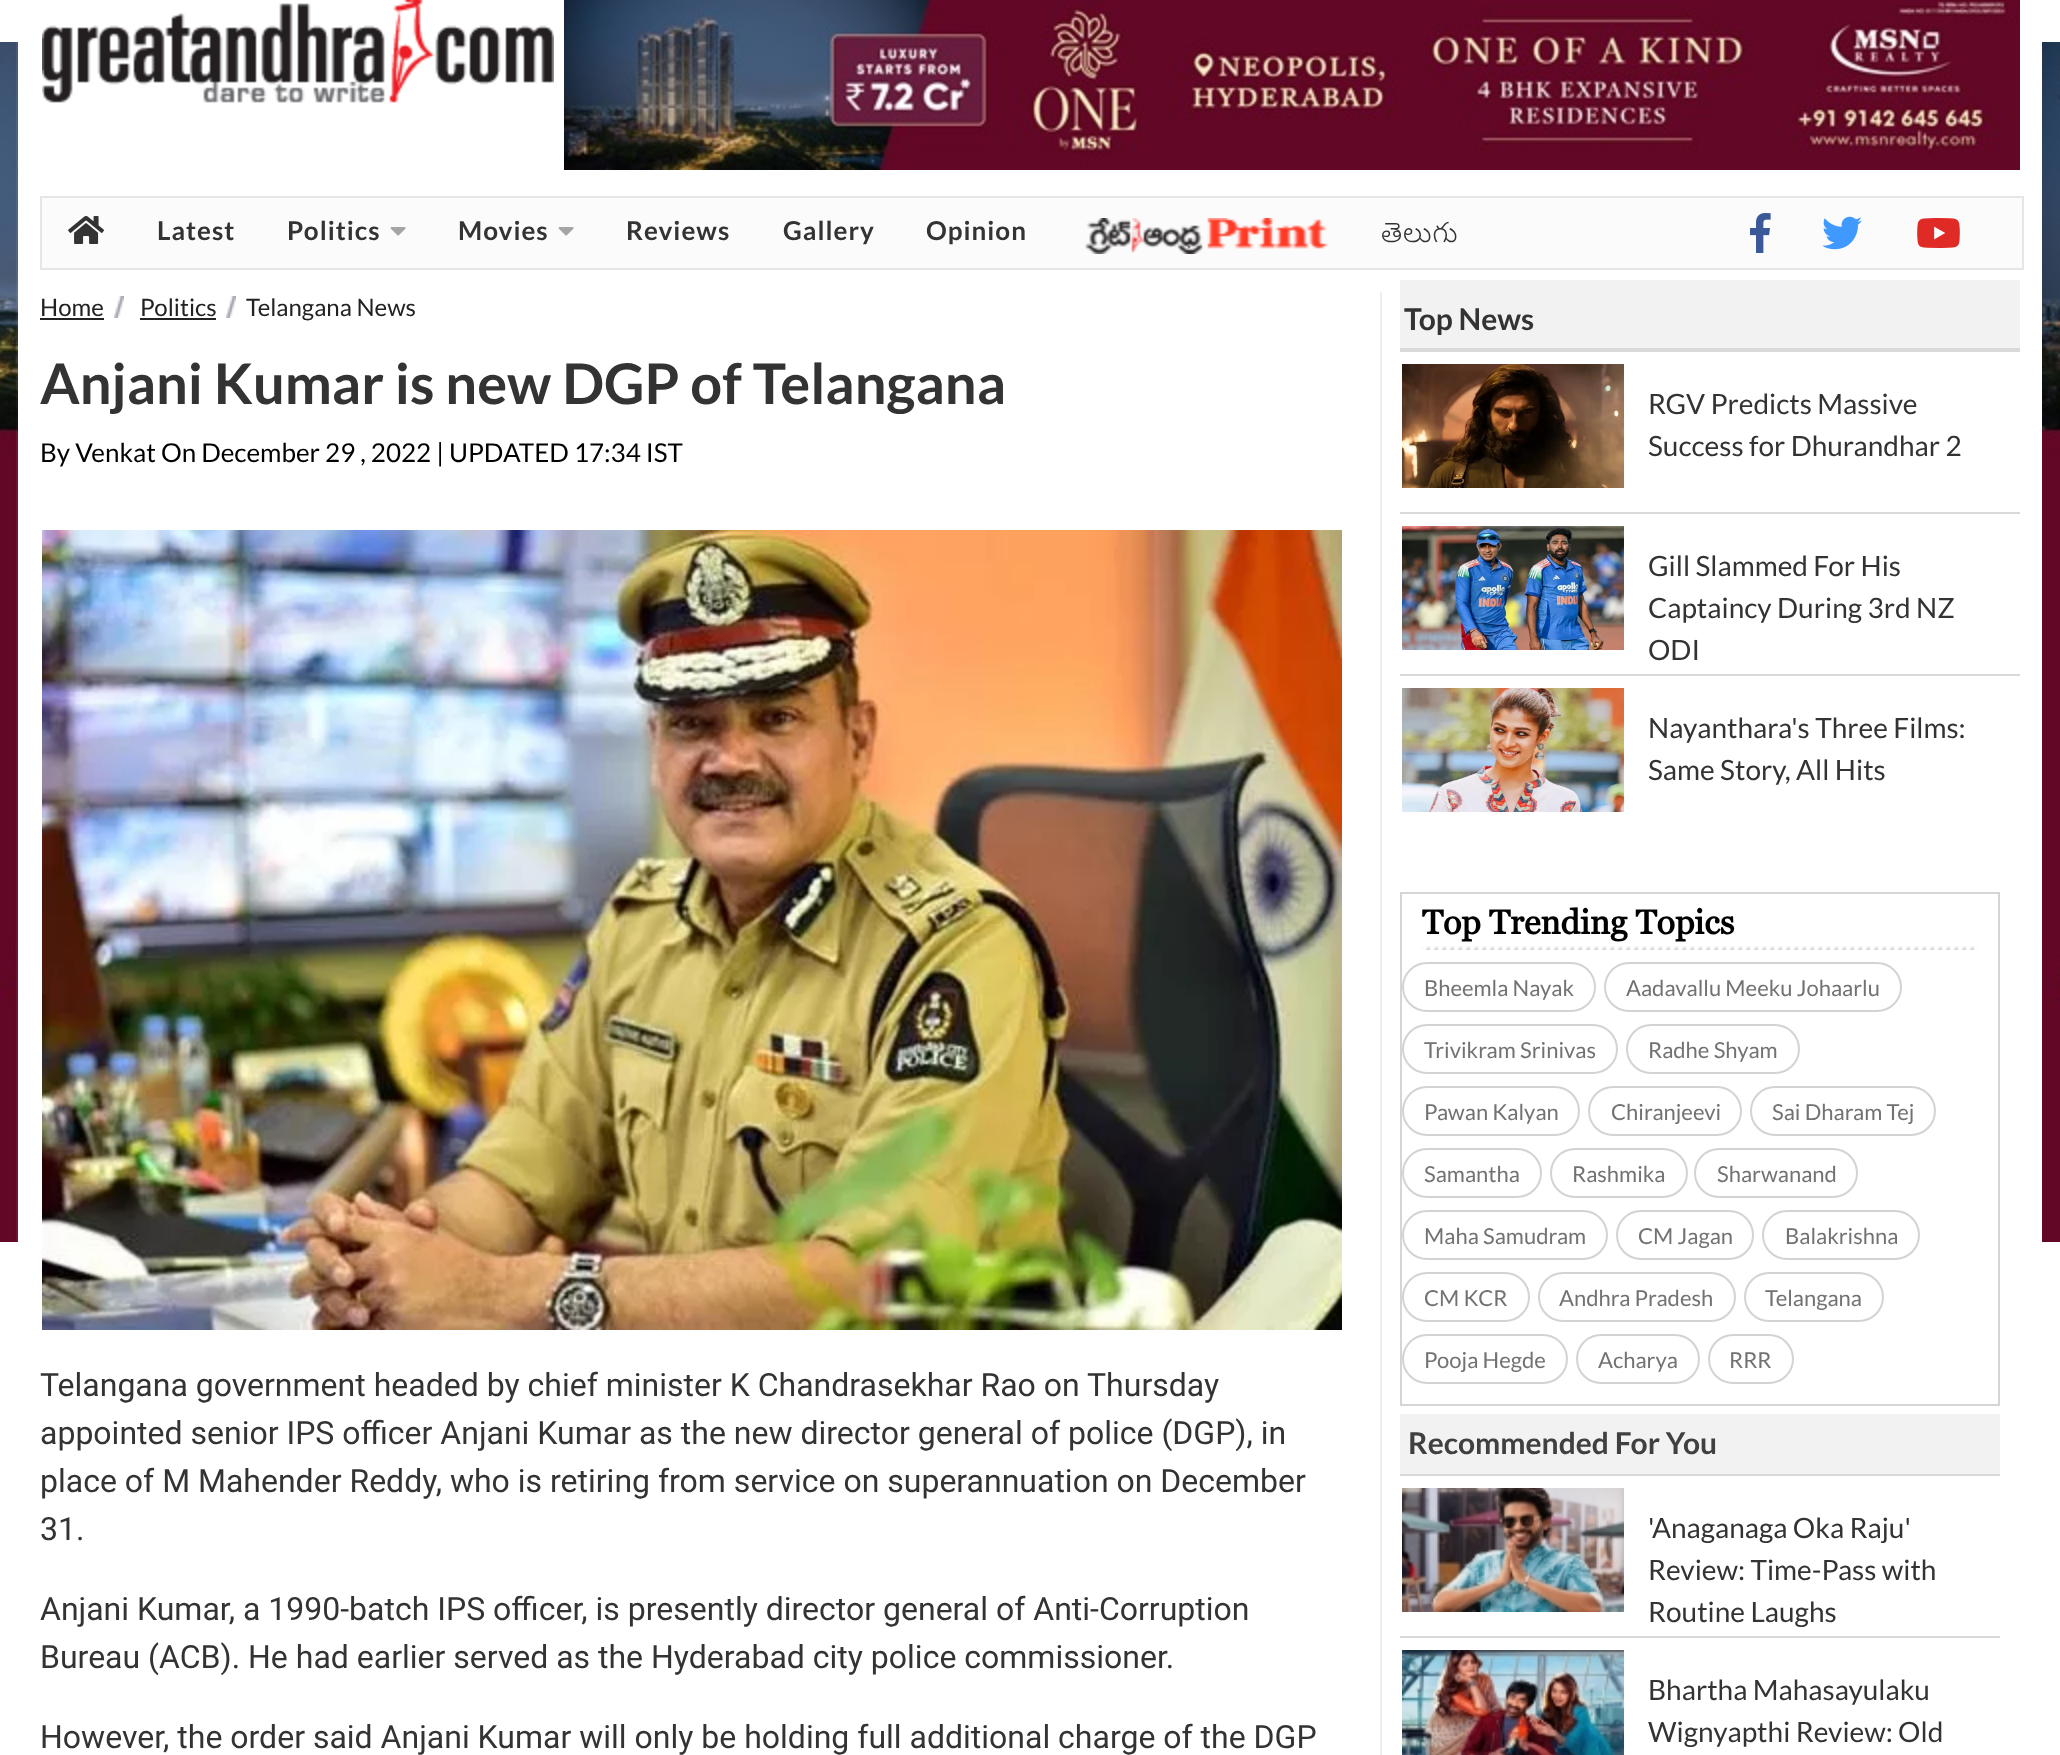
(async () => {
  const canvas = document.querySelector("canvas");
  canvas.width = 2060;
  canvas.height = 1755;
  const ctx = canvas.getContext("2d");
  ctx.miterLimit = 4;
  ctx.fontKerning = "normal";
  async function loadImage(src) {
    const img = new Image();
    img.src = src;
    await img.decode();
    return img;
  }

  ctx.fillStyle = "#ffffff";
  ctx.fillRect(0, 0, 2060, 1755);
  ctx.drawImage(await loadImage("img/1.png"), 0, 42, 18, 1200);
  ctx.drawImage(await loadImage("img/2.png"), 42, 0, 512, 103);
  ctx.drawImage(await loadImage("img/3.png"), 564, 0, 1456, 170);
  ctx.fillStyle = "#fbfbfb";
  ctx.beginPath();
  ctx.rect(41, 197, 1982, 72);
  ctx.fill();
  ctx.strokeStyle = "#e6e6e6";
  ctx.lineWidth = 2;
  ctx.stroke();
  ctx.drawImage(await loadImage("img/4.png"), 68, 216, 36, 28);
  ctx.drawImage(await loadImage("img/5.png"), 390, 227, 16, 9);
  ctx.drawImage(await loadImage("img/5.png"), 558, 227, 16, 9);
  ctx.drawImage(await loadImage("img/6.png"), 1085, 218, 243, 36);
  ctx.drawImage(await loadImage("img/7.png"), 1750, 213, 21, 40);
  ctx.drawImage(await loadImage("img/8.png"), 1822, 216, 40, 34);
  ctx.drawImage(await loadImage("img/9.png"), 1917, 218, 43, 30);
  ctx.fillStyle = "#ededed";
  ctx.fillRect(1380, 292, 2, 1463);
  ctx.fillStyle = "#222222";
  ctx.fillRect(40, 318, 64, 2);
  ctx.drawImage(await loadImage("img/10.png"), 114, 296, 10, 22);
  ctx.fillRect(140, 318, 76, 2);
  ctx.drawImage(await loadImage("img/10.png"), 226, 296, 10, 22);
  ctx.drawImage(await loadImage("img/11.png"), 42, 530, 1300, 800);
  ctx.fillStyle = "#f2f2f2";
  ctx.fillRect(1400, 280, 620, 68);
  ctx.fillStyle = "#d9d9d9";
  ctx.fillRect(1400, 348, 620, 4);
  ctx.drawImage(await loadImage("img/12.png"), 1402, 364, 222, 124);
  ctx.fillRect(1400, 512, 620, 2);
  ctx.drawImage(await loadImage("img/13.png"), 1402, 526, 222, 124);
  ctx.fillRect(1400, 674, 620, 2);
  ctx.drawImage(await loadImage("img/14.png"), 1402, 688, 222, 124);
  ctx.strokeStyle = "#d5d5d5";
  ctx.strokeRect(1401, 893, 598, 512);
  ctx.drawImage(await loadImage("img/15.png"), 1422, 946, 556, 4);
  ctx.beginPath();
  ctx.roundRect(1403, 963, 192, 48, 24);
  ctx.strokeStyle = "#d3d3d3";
  ctx.stroke();
  ctx.beginPath();
  ctx.roundRect(1605, 963, 296, 48, 24);
  ctx.stroke();
  ctx.beginPath();
  ctx.roundRect(1403, 1025, 214, 48, 24);
  ctx.stroke();
  ctx.beginPath();
  ctx.roundRect(1627, 1025, 172, 48, 24);
  ctx.stroke();
  ctx.beginPath();
  ctx.roundRect(1403, 1087, 176, 48, 24);
  ctx.stroke();
  ctx.beginPath();
  ctx.roundRect(1589, 1087, 152, 48, 24);
  ctx.stroke();
  ctx.beginPath();
  ctx.roundRect(1751, 1087, 184, 48, 24);
  ctx.stroke();
  ctx.beginPath();
  ctx.roundRect(1403, 1149, 138, 48, 24);
  ctx.stroke();
  ctx.beginPath();
  ctx.roundRect(1551, 1149, 136, 48, 24);
  ctx.stroke();
  ctx.beginPath();
  ctx.roundRect(1695, 1149, 162, 48, 24);
  ctx.stroke();
  ctx.beginPath();
  ctx.roundRect(1403, 1211, 204, 48, 24);
  ctx.stroke();
  ctx.beginPath();
  ctx.roundRect(1617, 1211, 136, 48, 24);
  ctx.stroke();
  ctx.beginPath();
  ctx.roundRect(1763, 1211, 156, 48, 24);
  ctx.stroke();
  ctx.beginPath();
  ctx.roundRect(1403, 1273, 126, 48, 24);
  ctx.stroke();
  ctx.beginPath();
  ctx.roundRect(1539, 1273, 196, 48, 24);
  ctx.stroke();
  ctx.beginPath();
  ctx.roundRect(1745, 1273, 138, 48, 24);
  ctx.stroke();
  ctx.beginPath();
  ctx.roundRect(1403, 1335, 164, 48, 24);
  ctx.stroke();
  ctx.beginPath();
  ctx.roundRect(1577, 1335, 122, 48, 24);
  ctx.stroke();
  ctx.beginPath();
  ctx.roundRect(1709, 1335, 84, 48, 24);
  ctx.stroke();
  ctx.fillStyle = "#f2f2f2";
  ctx.fillRect(1400, 1414, 600, 60);
  ctx.fillStyle = "#d9d9d9";
  ctx.fillRect(1400, 1474, 600, 2);
  ctx.drawImage(await loadImage("img/16.png"), 1402, 1488, 222, 124);
  ctx.fillRect(1400, 1636, 600, 2);
  ctx.drawImage(await loadImage("img/17.png"), 1402, 1650, 222, 105);
  ctx.drawImage(await loadImage("img/18.png"), 2042, 42, 18, 1200);
  ctx.letterSpacing = "1px";
  ctx.font = "bold 26px Lato";
  ctx.fillStyle = "#333333";
  for (const [text, x, y] of [
    ["Latest", 157, 240],
    ["Politics", 287, 240],
    ["Movies", 458, 240],
    ["Reviews", 626, 240],
    ["Gallery", 783, 240],
    ["Opinion", 926, 240],
  ]) {
    ctx.fillText(text, x, y);
  }
  ctx.font = "300 28px Noto Sans Telugu";
  ctx.fillText("తెలుగు", 1381, 242);
  ctx.letterSpacing = "0px";
  ctx.font = "24px Lato";
  ctx.fillStyle = "#222222";
  for (const [text, x, y] of [
    ["Home", 40, 316],
    ["Politics", 140, 316],
    ["Telangana News", 246, 316],
  ]) {
    ctx.fillText(text, x, y);
  }
  ctx.font = "bold 56px Lato";
  ctx.fillStyle = "#333333";
  ctx.fillText("Anjani Kumar is new DGP of Telangana", 40, 404);
  ctx.font = "26px Lato";
  ctx.fillStyle = "#000000";
  ctx.fillText("By Venkat On December 29 , 2022 | UPDATED 17:34 IST", 40, 462);
  ctx.font = "32px Roboto";
  ctx.fillStyle = "#333333";
  for (const [text, x, y] of [
    ["Telangana government headed by chief minister K Chandrasekhar Rao on Thursday", 40, 1396],
    ["appointed senior IPS officer Anjani Kumar as the new director general of police (DGP), in", 40, 1444],
    ["place of M Mahender Reddy, who is retiring from service on superannuation on December", 40, 1492],
    ["31.", 40, 1540],
    ["Anjani Kumar, a 1990-batch IPS officer, is presently director general of Anti-Corruption", 40, 1620],
    ["Bureau (ACB). He had earlier served as the Hyderabad city police commissioner.", 40, 1668],
    ["However, the order said Anjani Kumar will only be holding full additional charge of the DGP", 40, 1748],
  ]) {
    ctx.fillText(text, x, y);
  }
  ctx.font = "bold 30px Lato";
  ctx.fillText("Top News", 1404, 330);
  ctx.font = "28px Lato";
  for (const [text, x, y] of [
    ["RGV Predicts Massive", 1648, 414],
    ["Success for Dhurandhar 2", 1648, 456],
    ["Gill Slammed For His", 1648, 576],
    ["Captaincy During 3rd NZ", 1648, 618],
    ["ODI", 1648, 660],
    ["Nayanthara's Three Films:", 1648, 738],
    ["Same Story, All Hits", 1648, 780],
  ]) {
    ctx.fillText(text, x, y);
  }
  ctx.font = "bold 34px Georgia";
  ctx.fillStyle = "#000000";
  ctx.fillText("Top Trending Topics", 1422, 934);
  ctx.font = "22px Lato";
  ctx.fillStyle = "#727272";
  for (const [text, x, y] of [
    ["Bheemla Nayak", 1424, 996],
    ["Aadavallu Meeku Johaarlu", 1626, 996],
    ["Trivikram Srinivas", 1424, 1058],
    ["Radhe Shyam", 1648, 1058],
    ["Pawan Kalyan", 1424, 1120],
    ["Chiranjeevi", 1611, 1120],
    ["Sai Dharam Tej", 1772, 1120],
    ["Samantha", 1424, 1182],
    ["Rashmika", 1572, 1182],
    ["Sharwanand", 1717, 1182],
    ["Maha Samudram", 1424, 1244],
    ["CM Jagan", 1638, 1244],
    ["Balakrishna", 1785, 1244],
    ["CM KCR", 1424, 1306],
    ["Andhra Pradesh", 1559, 1306],
    ["Telangana", 1765, 1306],
    ["Pooja Hegde", 1424, 1368],
    ["Acharya", 1598, 1368],
    ["RRR", 1729, 1368],
  ]) {
    ctx.fillText(text, x, y);
  }
  ctx.font = "bold 30px Lato";
  ctx.fillStyle = "#404040";
  ctx.fillText("Recommended For You", 1408, 1454);
  ctx.font = "28px Lato";
  ctx.fillStyle = "#333333";
  for (const [text, x, y] of [
    ["'Anaganaga Oka Raju'", 1648, 1538],
    ["Review: Time-Pass with", 1648, 1580],
    ["Routine Laughs", 1648, 1622],
    ["Bhartha Mahasayulaku", 1648, 1700],
    ["Wignyapthi Review: Old", 1648, 1742],
  ]) {
    ctx.fillText(text, x, y);
  }
})();
